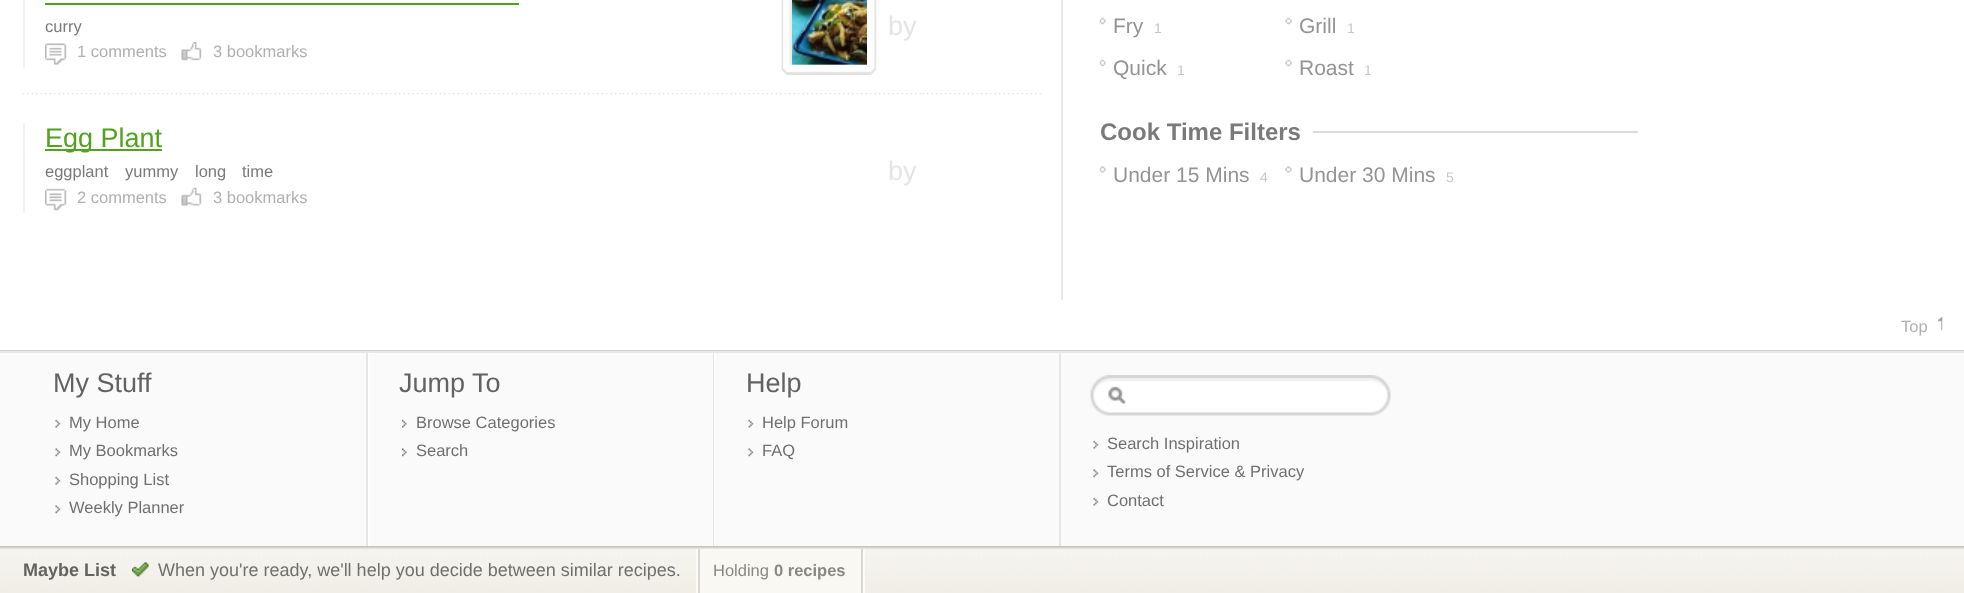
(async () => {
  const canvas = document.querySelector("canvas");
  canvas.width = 1964;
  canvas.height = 593;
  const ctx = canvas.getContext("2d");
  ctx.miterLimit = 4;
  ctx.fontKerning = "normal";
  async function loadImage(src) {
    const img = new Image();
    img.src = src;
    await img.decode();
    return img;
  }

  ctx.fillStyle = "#ffffff";
  ctx.fillRect(0, 0, 1964, 593);
  ctx.fillStyle = "#f2f2f2";
  ctx.fillRect(23, 0, 2, 68);
  ctx.fillStyle = "#52a21d";
  ctx.fillRect(45, 3, 474, 2);
  ctx.drawImage(await loadImage("img/1.png"), 45, 43, 22, 22);
  ctx.drawImage(await loadImage("img/2.png"), 181, 42, 21, 19);
  ctx.drawImage(await loadImage("img/3.png"), 781, 0, 96, 75);
  ctx.drawImage(await loadImage("img/4.png"), 792, 0, 75, 65);
  ctx.drawImage(await loadImage("img/5.png"), 22, 93, 1020, 2);
  ctx.fillStyle = "#f2f2f2";
  ctx.fillRect(23, 123, 2, 90);
  ctx.fillStyle = "#52a21d";
  ctx.fillRect(45, 149, 117, 2);
  ctx.drawImage(await loadImage("img/6.png"), 45, 188, 22, 23);
  ctx.drawImage(await loadImage("img/7.png"), 181, 187, 21, 19);
  ctx.fillStyle = "#e8e8e8";
  ctx.fillRect(1061, 0, 2, 300);
  ctx.drawImage(await loadImage("img/8.png"), 1099, 17, 7, 8);
  ctx.drawImage(await loadImage("img/9.png"), 1285, 17, 7, 8);
  ctx.drawImage(await loadImage("img/8.png"), 1099, 59, 7, 8);
  ctx.drawImage(await loadImage("img/9.png"), 1285, 59, 7, 8);
  ctx.fillStyle = "#dbdbdb";
  ctx.fillRect(1313, 131, 325, 2);
  ctx.drawImage(await loadImage("img/10.png"), 1099, 166, 7, 7);
  ctx.drawImage(await loadImage("img/11.png"), 1285, 166, 7, 7);
  ctx.fillStyle = "#d1d1d1";
  ctx.fillRect(0, 350, 1964, 1);
  ctx.drawImage(await loadImage("img/12.png"), 1938, 316, 5, 15);
  for (const [x, y, w, h, color] of [
    [0, 353, 1964, 194, "#fafafa"],
    [0, 351, 1964, 2, "#e8e8e8"],
    [366, 353, 2, 194, "#e5e5e5"],
  ]) {
    ctx.fillStyle = color;
    ctx.fillRect(x, y, w, h);
  }
  ctx.drawImage(await loadImage("img/13.png"), 55, 419, 6, 9);
  ctx.drawImage(await loadImage("img/14.png"), 55, 448, 6, 9);
  ctx.drawImage(await loadImage("img/13.png"), 55, 476, 6, 9);
  ctx.drawImage(await loadImage("img/14.png"), 55, 505, 6, 9);
  ctx.fillRect(713, 353, 1, 194);
  ctx.fillStyle = "#ffffff";
  ctx.fillRect(368, 353, 2, 194);
  ctx.drawImage(await loadImage("img/15.png"), 402, 419, 5, 9);
  ctx.drawImage(await loadImage("img/16.png"), 402, 448, 5, 9);
  ctx.fillStyle = "#e5e5e5";
  ctx.fillRect(1059, 353, 2, 194);
  ctx.fillStyle = "#ffffff";
  ctx.fillRect(714, 353, 2, 194);
  ctx.drawImage(await loadImage("img/17.png"), 748, 419, 6, 9);
  ctx.drawImage(await loadImage("img/18.png"), 748, 448, 6, 9);
  ctx.drawImage(await loadImage("img/19.png"), 1090, 375, 301, 41);
  ctx.drawImage(await loadImage("img/13.png"), 1093, 440, 6, 9);
  ctx.drawImage(await loadImage("img/14.png"), 1093, 469, 6, 9);
  ctx.drawImage(await loadImage("img/13.png"), 1093, 497, 6, 9);
  ctx.drawImage(await loadImage("img/20.png"), 0, 546, 1964, 47);
  ctx.drawImage(await loadImage("img/21.png"), 132, 562, 17, 16);
  for (const [x, y, w, h, color] of [
    [700, 549, 161, 44, "#faf8f3"],
    [863, 549, 2, 44, "#fbfbf9"],
    [696, 549, 2, 44, "#fbfbf9"],
    [861, 549, 2, 44, "#d9d7d2"],
    [698, 549, 2, 44, "#d9d7d2"],
  ]) {
    ctx.fillStyle = color;
    ctx.fillRect(x, y, w, h);
  }
  ctx.font = "16.5px Liberation Sans";
  ctx.fillStyle = "#7a7a7a";
  ctx.fillText("curry", 45, 32);
  ctx.fillStyle = "#b0b0b0";
  ctx.fillText("1 comments", 77, 57);
  ctx.fillText("3 bookmarks", 213, 57);
  ctx.font = "27px Liberation Sans";
  ctx.fillStyle = "#e5e5e5";
  ctx.fillText("by", 888, 35);
  ctx.fillStyle = "#52a21d";
  ctx.fillText("Egg Plant", 45, 147);
  ctx.font = "16.5px Liberation Sans";
  ctx.fillStyle = "#7a7a7a";
  for (const [text, x, y] of [
    ["eggplant", 45, 177],
    ["yummy", 125, 177],
    ["long", 195, 177],
    ["time", 242, 177],
  ]) {
    ctx.fillText(text, x, y);
  }
  ctx.fillStyle = "#b0b0b0";
  ctx.fillText("2 comments", 77, 203);
  ctx.fillText("3 bookmarks", 213, 203);
  ctx.font = "27px Liberation Sans";
  ctx.fillStyle = "#e5e5e5";
  ctx.fillText("by", 888, 180);
  ctx.font = "21px Liberation Sans";
  ctx.fillStyle = "#949494";
  ctx.fillText("Fry", 1113, 33);
  ctx.font = "14px Liberation Sans";
  ctx.fillStyle = "#c7c7c7";
  ctx.fillText("1", 1154, 33);
  ctx.font = "21px Liberation Sans";
  ctx.fillStyle = "#949494";
  ctx.fillText("Grill", 1299, 33);
  ctx.font = "14px Liberation Sans";
  ctx.fillStyle = "#c7c7c7";
  ctx.fillText("1", 1347, 33);
  ctx.font = "21px Liberation Sans";
  ctx.fillStyle = "#949494";
  ctx.fillText("Quick", 1113, 75);
  ctx.font = "14px Liberation Sans";
  ctx.fillStyle = "#c7c7c7";
  ctx.fillText("1", 1177, 75);
  ctx.font = "21px Liberation Sans";
  ctx.fillStyle = "#949494";
  ctx.fillText("Roast", 1299, 75);
  ctx.font = "14px Liberation Sans";
  ctx.fillStyle = "#c7c7c7";
  ctx.fillText("1", 1364, 75);
  ctx.font = "bold 24px Liberation Sans";
  ctx.fillStyle = "#7a7a7a";
  ctx.fillText("Cook Time Filters", 1100, 140);
  ctx.font = "21px Liberation Sans";
  ctx.fillStyle = "#949494";
  ctx.fillText("Under 15 Mins", 1113, 182);
  ctx.font = "14px Liberation Sans";
  ctx.fillStyle = "#c7c7c7";
  ctx.fillText("4", 1260, 182);
  ctx.font = "21px Liberation Sans";
  ctx.fillStyle = "#949494";
  ctx.fillText("Under 30 Mins", 1299, 182);
  ctx.font = "14px Liberation Sans";
  ctx.fillStyle = "#c7c7c7";
  ctx.fillText("5", 1446, 182);
  ctx.font = "16.5px Liberation Sans";
  ctx.fillStyle = "#b0b0b0";
  ctx.fillText("Top", 1901, 332);
  ctx.font = "27px Liberation Sans";
  ctx.fillStyle = "#636363";
  ctx.fillText("My Stuff", 53, 392);
  ctx.font = "16.5px Liberation Sans";
  ctx.fillStyle = "#707070";
  for (const [text, x, y] of [
    ["My Home", 69, 428],
    ["My Bookmarks", 69, 456],
    ["Shopping List", 69, 485],
    ["Weekly Planner", 69, 513],
  ]) {
    ctx.fillText(text, x, y);
  }
  ctx.font = "27px Liberation Sans";
  ctx.fillStyle = "#636363";
  ctx.fillText("Jump To", 399, 392);
  ctx.font = "16.5px Liberation Sans";
  ctx.fillStyle = "#707070";
  ctx.fillText("Browse Categories", 416, 428);
  ctx.fillText("Search", 416, 456);
  ctx.font = "27px Liberation Sans";
  ctx.fillStyle = "#636363";
  ctx.fillText("Help", 746, 392);
  ctx.font = "16.5px Liberation Sans";
  ctx.fillStyle = "#707070";
  for (const [text, x, y] of [
    ["Help Forum", 762, 428],
    ["FAQ", 762, 456],
    ["Search Inspiration", 1107, 449],
    ["Terms of Service & Privacy", 1107, 477],
    ["Contact", 1107, 506],
  ]) {
    ctx.fillText(text, x, y);
  }
  ctx.font = "bold 18px Liberation Sans";
  ctx.fillStyle = "#636363";
  ctx.fillText("Maybe List", 23, 576);
  ctx.font = "18px Liberation Sans";
  ctx.fillStyle = "#707070";
  ctx.fillText("When you're ready, we'll help you decide between similar recipes.", 158, 576);
  ctx.font = "16.5px Liberation Sans";
  ctx.fillStyle = "#8a8886";
  ctx.fillText("Holding", 713, 576);
  ctx.font = "bold 16.5px Liberation Sans";
  ctx.fillText("0 recipes", 774, 576);
})();
